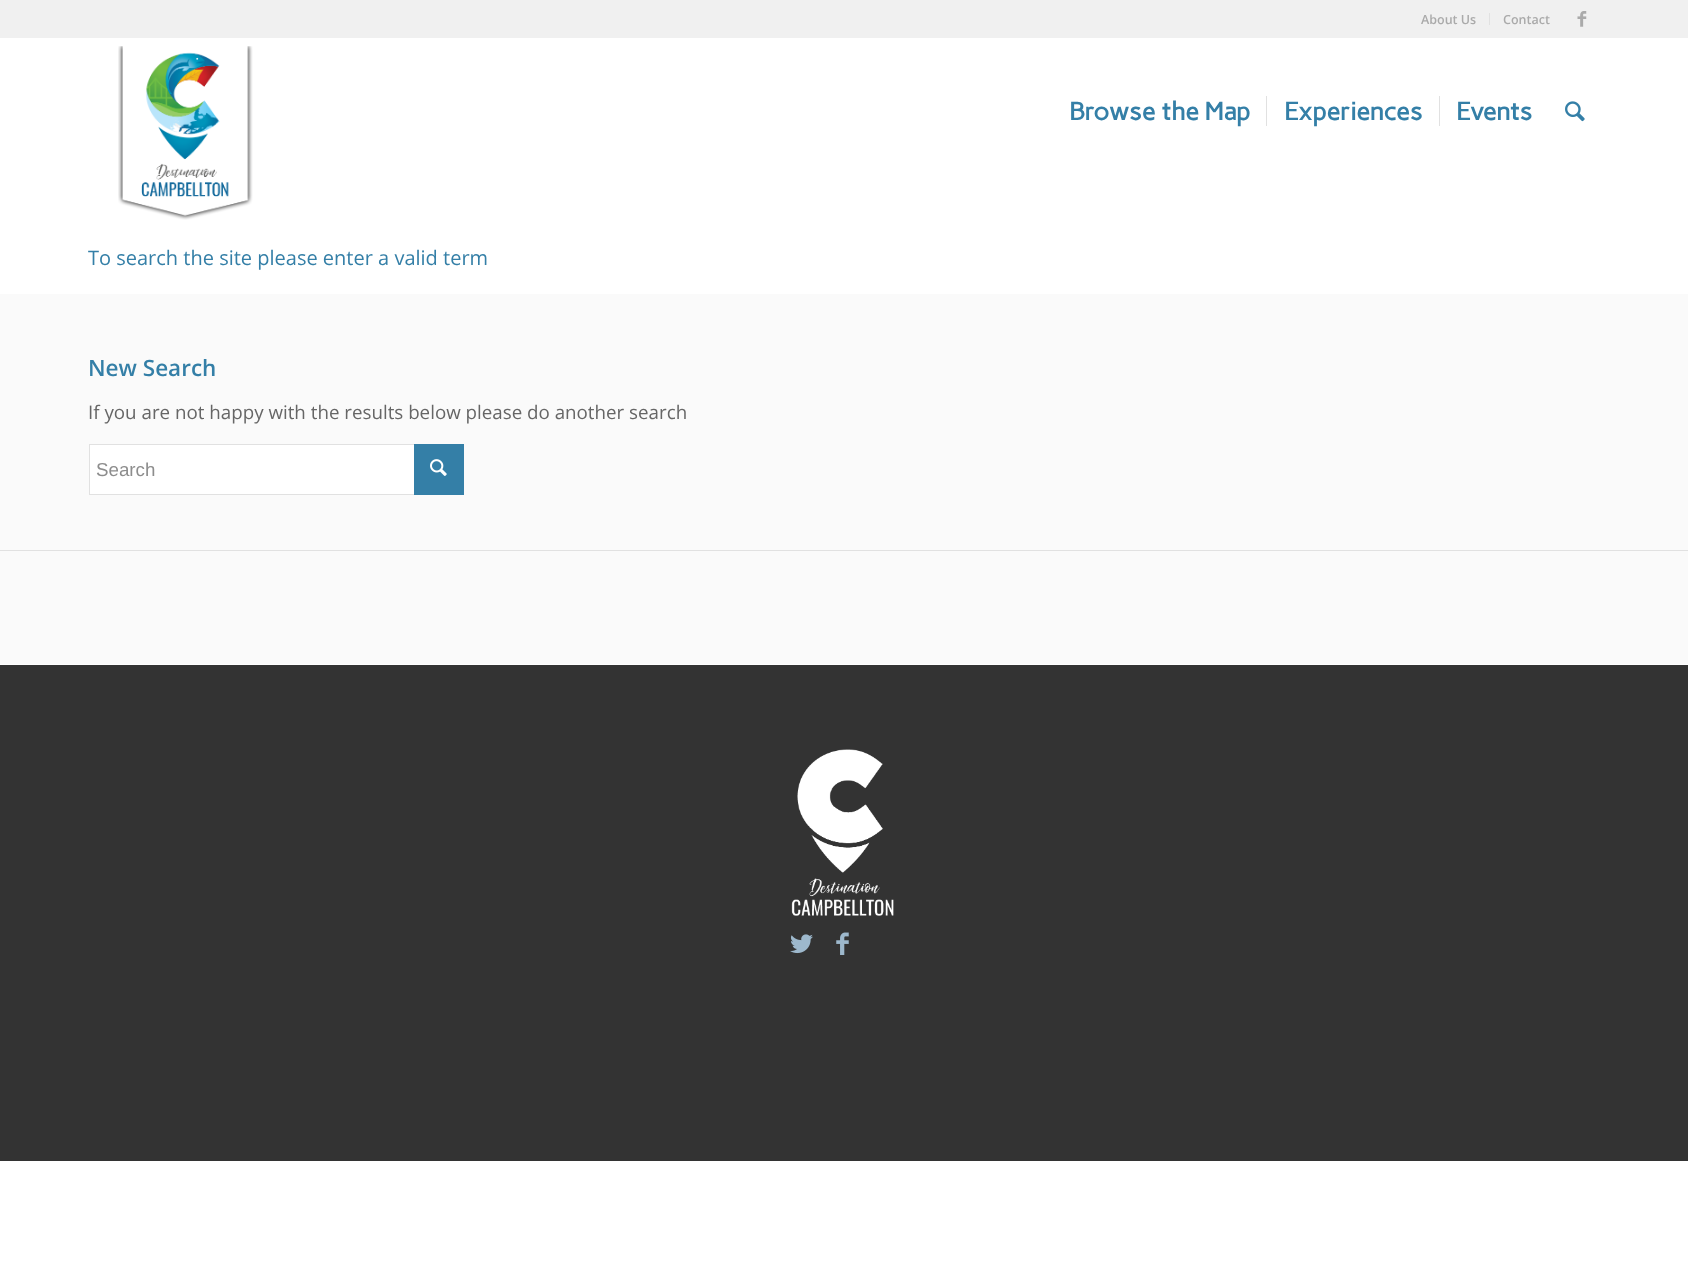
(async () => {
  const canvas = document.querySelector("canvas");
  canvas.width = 1688;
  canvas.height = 1281;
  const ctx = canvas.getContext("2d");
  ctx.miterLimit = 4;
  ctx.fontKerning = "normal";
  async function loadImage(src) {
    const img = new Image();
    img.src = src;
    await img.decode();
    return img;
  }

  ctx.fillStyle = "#ffffff";
  ctx.fillRect(0, 0, 1688, 1281);
  ctx.fillStyle = "#f0f0f0";
  ctx.fillRect(0, 0, 1688, 38);
  ctx.fillStyle = "#e1e1e1";
  ctx.fillRect(1489, 13, 1, 12);
  ctx.drawImage(await loadImage("img/1.png"), 1577, 11, 10, 16);
  ctx.drawImage(await loadImage("img/2.png"), 118, 46, 135, 174);
  ctx.fillRect(1266, 96, 1, 30);
  ctx.fillRect(1439, 96, 1, 30);
  ctx.drawImage(await loadImage("img/3.png"), 1565, 101, 20, 21);
  ctx.fillStyle = "#fafafa";
  ctx.fillRect(0, 294, 1688, 370);
  ctx.fillStyle = "#ffffff";
  ctx.fillRect(90, 445, 324, 49);
  ctx.strokeStyle = "#e1e1e1";
  ctx.strokeRect(89.5, 444.5, 374, 50);
  ctx.fillStyle = "#347fa7";
  ctx.fillRect(414, 444, 50, 51);
  ctx.drawImage(await loadImage("img/4.png"), 430, 459, 17, 17);
  ctx.fillStyle = "#e1e1e1";
  ctx.fillRect(0, 550, 1688, 1);
  ctx.fillStyle = "#333333";
  ctx.fillRect(0, 665, 1688, 496);
  ctx.drawImage(await loadImage("img/5.png"), 791, 749, 103, 167);
  ctx.drawImage(await loadImage("img/6.png"), 790, 934, 23, 20);
  ctx.drawImage(await loadImage("img/7.png"), 836, 932, 13, 23);
  ctx.font = "600 12.5px Open Sans";
  ctx.fillStyle = "#aaaaaa";
  ctx.fillText("About Us", 1421, 24);
  ctx.fillText("Contact", 1503, 24);
  ctx.font = "bold 25px Carme";
  ctx.fillStyle = "#347fa7";
  for (const [text, x, y] of [
    ["Browse the Map", 1069, 120],
    ["Experiences", 1284, 120],
    ["Events", 1456, 120],
  ]) {
    ctx.fillText(text, x, y);
  }
  ctx.font = "20px Open Sans";
  ctx.fillText("To search the site please enter a valid term", 88, 265);
  ctx.font = "600 22.5px Open Sans";
  ctx.fillText("New Search", 88, 376);
  ctx.font = "18.75px Open Sans";
  ctx.fillStyle = "#666666";
  ctx.fillText("If you are not happy with the results below please do another search", 88, 419);
  ctx.font = "18.75px Liberation Sans";
  ctx.fillStyle = "#8d8d8d";
  ctx.fillText("Search", 96, 476);
})();
